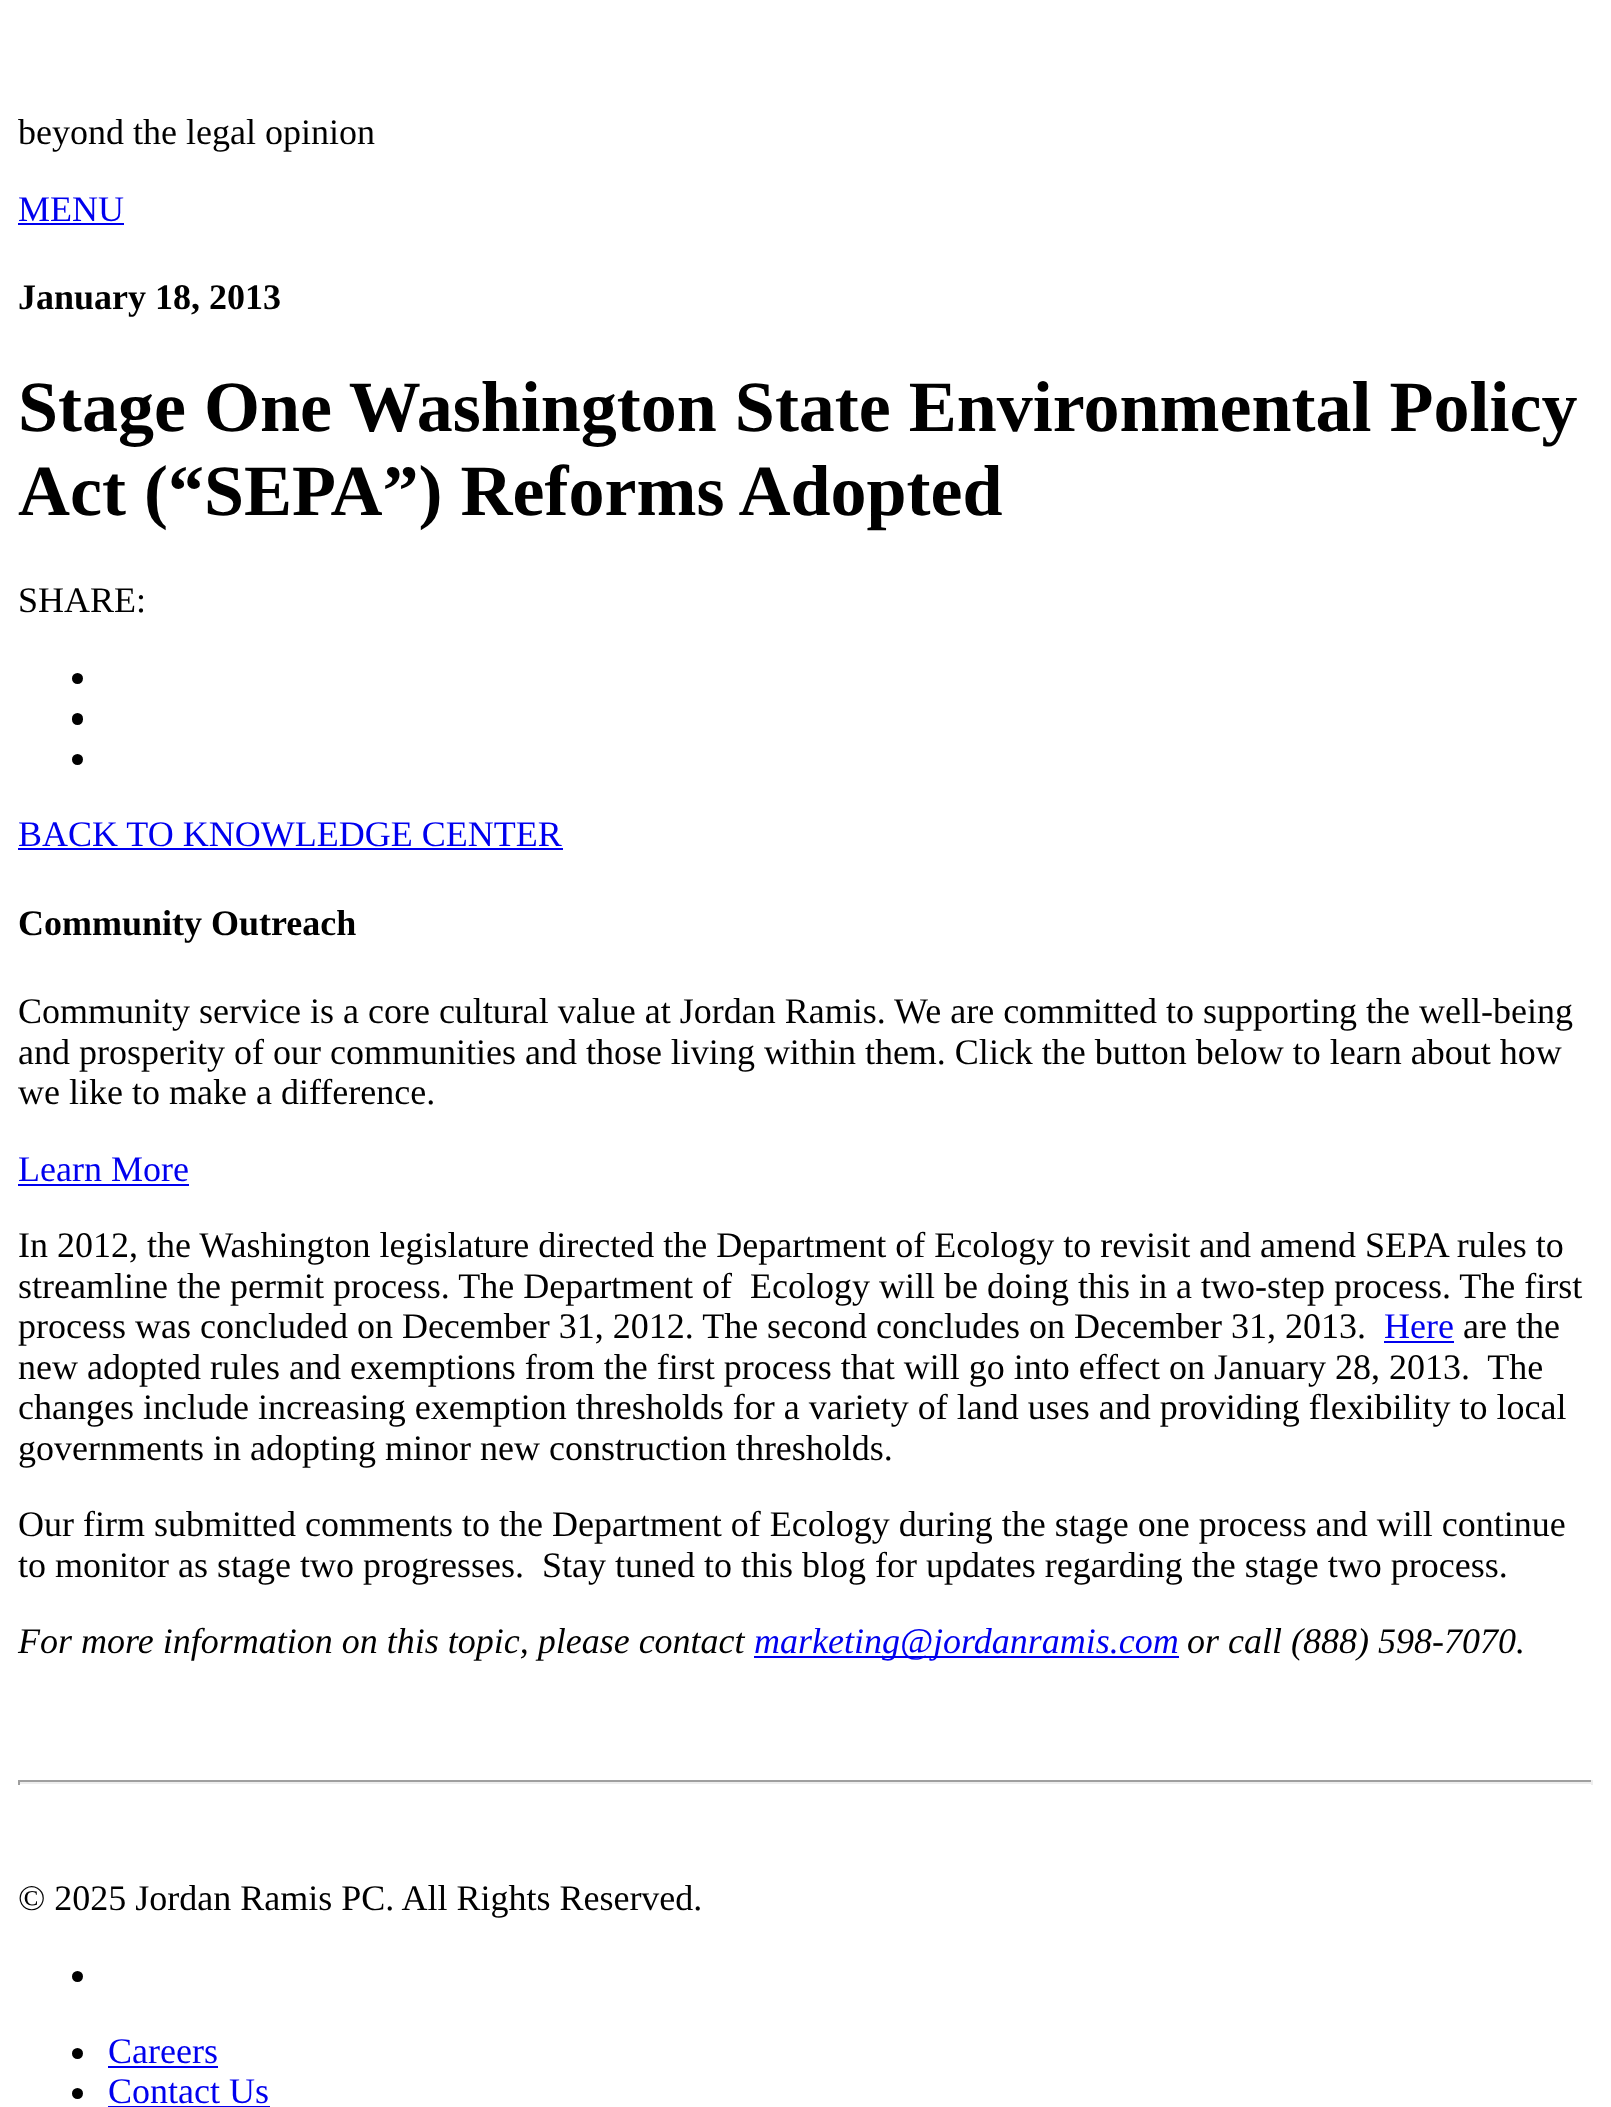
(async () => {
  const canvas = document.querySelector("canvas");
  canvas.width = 1611;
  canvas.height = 2107;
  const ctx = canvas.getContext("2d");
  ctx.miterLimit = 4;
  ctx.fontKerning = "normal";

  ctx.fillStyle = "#ffffff";
  ctx.fillRect(0, 0, 1611, 2107);
  ctx.fillStyle = "#0000ee";
  ctx.fillRect(18, 223, 106, 2);
  ctx.fillStyle = "#000000";
  ctx.beginPath();
  ctx.arc(77.5, 678.5, 5.5, 0, Math.PI * 2);
  ctx.fill();
  ctx.beginPath();
  ctx.roundRect(72, 713, 11, 12, 5.5);
  ctx.fill();
  ctx.beginPath();
  ctx.arc(77.5, 759.5, 5.5, 0, Math.PI * 2);
  ctx.fill();
  for (const [x, y, w, h, color] of [
    [18, 848, 545, 2, "#0000ee"],
    [18, 1184, 171, 2, "#0000ee"],
    [1384, 1341, 70, 2, "#0000ee"],
    [754, 1656, 425, 2, "#0000ee"],
    [18, 1780, 1575, 2, "#9f9f9f"],
    [1591, 1780, 2, 5, "#eeeeee"],
    [18, 1782, 1575, 2, "#eeeeee"],
    [18, 1780, 2, 5, "#9f9f9f"],
  ]) {
    ctx.fillStyle = color;
    ctx.fillRect(x, y, w, h);
  }
  ctx.fillStyle = "#000000";
  ctx.beginPath();
  ctx.arc(77.5, 1976.5, 5.5, 0, Math.PI * 2);
  ctx.fill();
  ctx.beginPath();
  ctx.arc(77.5, 2053.5, 5.5, 0, Math.PI * 2);
  ctx.fill();
  ctx.fillStyle = "#0000ee";
  ctx.fillRect(108, 2066, 110, 2);
  ctx.fillStyle = "#000000";
  ctx.beginPath();
  ctx.arc(77.5, 2093.5, 5.5, 0, Math.PI * 2);
  ctx.fill();
  ctx.fillStyle = "#0000ee";
  ctx.fillRect(108, 2106, 162, 1);
  ctx.font = "36px Liberation Serif";
  ctx.fillStyle = "#000000";
  ctx.fillText("beyond the legal opinion", 18, 144);
  ctx.fillStyle = "#0000ee";
  ctx.fillText("MENU", 18, 221);
  ctx.font = "bold 36px Liberation Serif";
  ctx.fillStyle = "#000000";
  ctx.fillText("January 18, 2013", 18, 309);
  ctx.font = "bold 72px Liberation Serif";
  ctx.fillText("Stage One Washington State Environmental Policy", 18, 431);
  ctx.fillText("Act (“SEPA”) Reforms Adopted", 18, 515);
  ctx.font = "36px Liberation Serif";
  ctx.fillText("SHARE:", 18, 612);
  ctx.fillStyle = "#0000ee";
  ctx.fillText("BACK TO KNOWLEDGE CENTER", 18, 846);
  ctx.font = "bold 36px Liberation Serif";
  ctx.fillStyle = "#000000";
  ctx.fillText("Community Outreach", 18, 935);
  ctx.font = "36px Liberation Serif";
  for (const [text, x, y] of [
    ["Community service is a core cultural value at Jordan Ramis. We are committed to supporting the well-being", 18, 1023],
    ["and prosperity of our communities and those living within them. Click the button below to learn about how", 18, 1064],
    ["we like to make a difference.", 18, 1104],
  ]) {
    ctx.fillText(text, x, y);
  }
  ctx.fillStyle = "#0000ee";
  ctx.fillText("Learn More", 18, 1181);
  ctx.fillStyle = "#000000";
  for (const [text, x, y] of [
    ["In 2012, the Washington legislature directed the Department of Ecology to revisit and amend SEPA rules to", 18, 1257],
    ["streamline the permit process. The Department of  Ecology will be doing this in a two-step process. The first", 18, 1298],
    ["process was concluded on December 31, 2012. The second concludes on December 31, 2013.", 18, 1338],
  ]) {
    ctx.fillText(text, x, y);
  }
  ctx.fillStyle = "#0000ee";
  ctx.fillText("Here", 1384, 1338);
  ctx.fillStyle = "#000000";
  for (const [text, x, y] of [
    ["are the", 1463, 1338],
    ["new adopted rules and exemptions from the first process that will go into effect on January 28, 2013.  The", 18, 1379],
    ["changes include increasing exemption thresholds for a variety of land uses and providing flexibility to local", 18, 1419],
    ["governments in adopting minor new construction thresholds.", 18, 1460],
    ["Our firm submitted comments to the Department of Ecology during the stage one process and will continue", 18, 1536],
    ["to monitor as stage two progresses.  Stay tuned to this blog for updates regarding the stage two process.", 18, 1577],
  ]) {
    ctx.fillText(text, x, y);
  }
  ctx.font = "italic 36px Liberation Serif";
  ctx.fillText("For more information on this topic, please contact", 18, 1653);
  ctx.fillStyle = "#0000ee";
  ctx.fillText("marketing@jordanramis.com", 754, 1653);
  ctx.fillStyle = "#000000";
  ctx.fillText("or call (888) 598-7070.", 1187, 1653);
  ctx.font = "36px Liberation Serif";
  ctx.fillText("© 2025 Jordan Ramis PC. All Rights Reserved.", 18, 1910);
  ctx.fillStyle = "#0000ee";
  ctx.fillText("Careers", 108, 2063);
  ctx.fillText("Contact Us", 108, 2103);
})();
